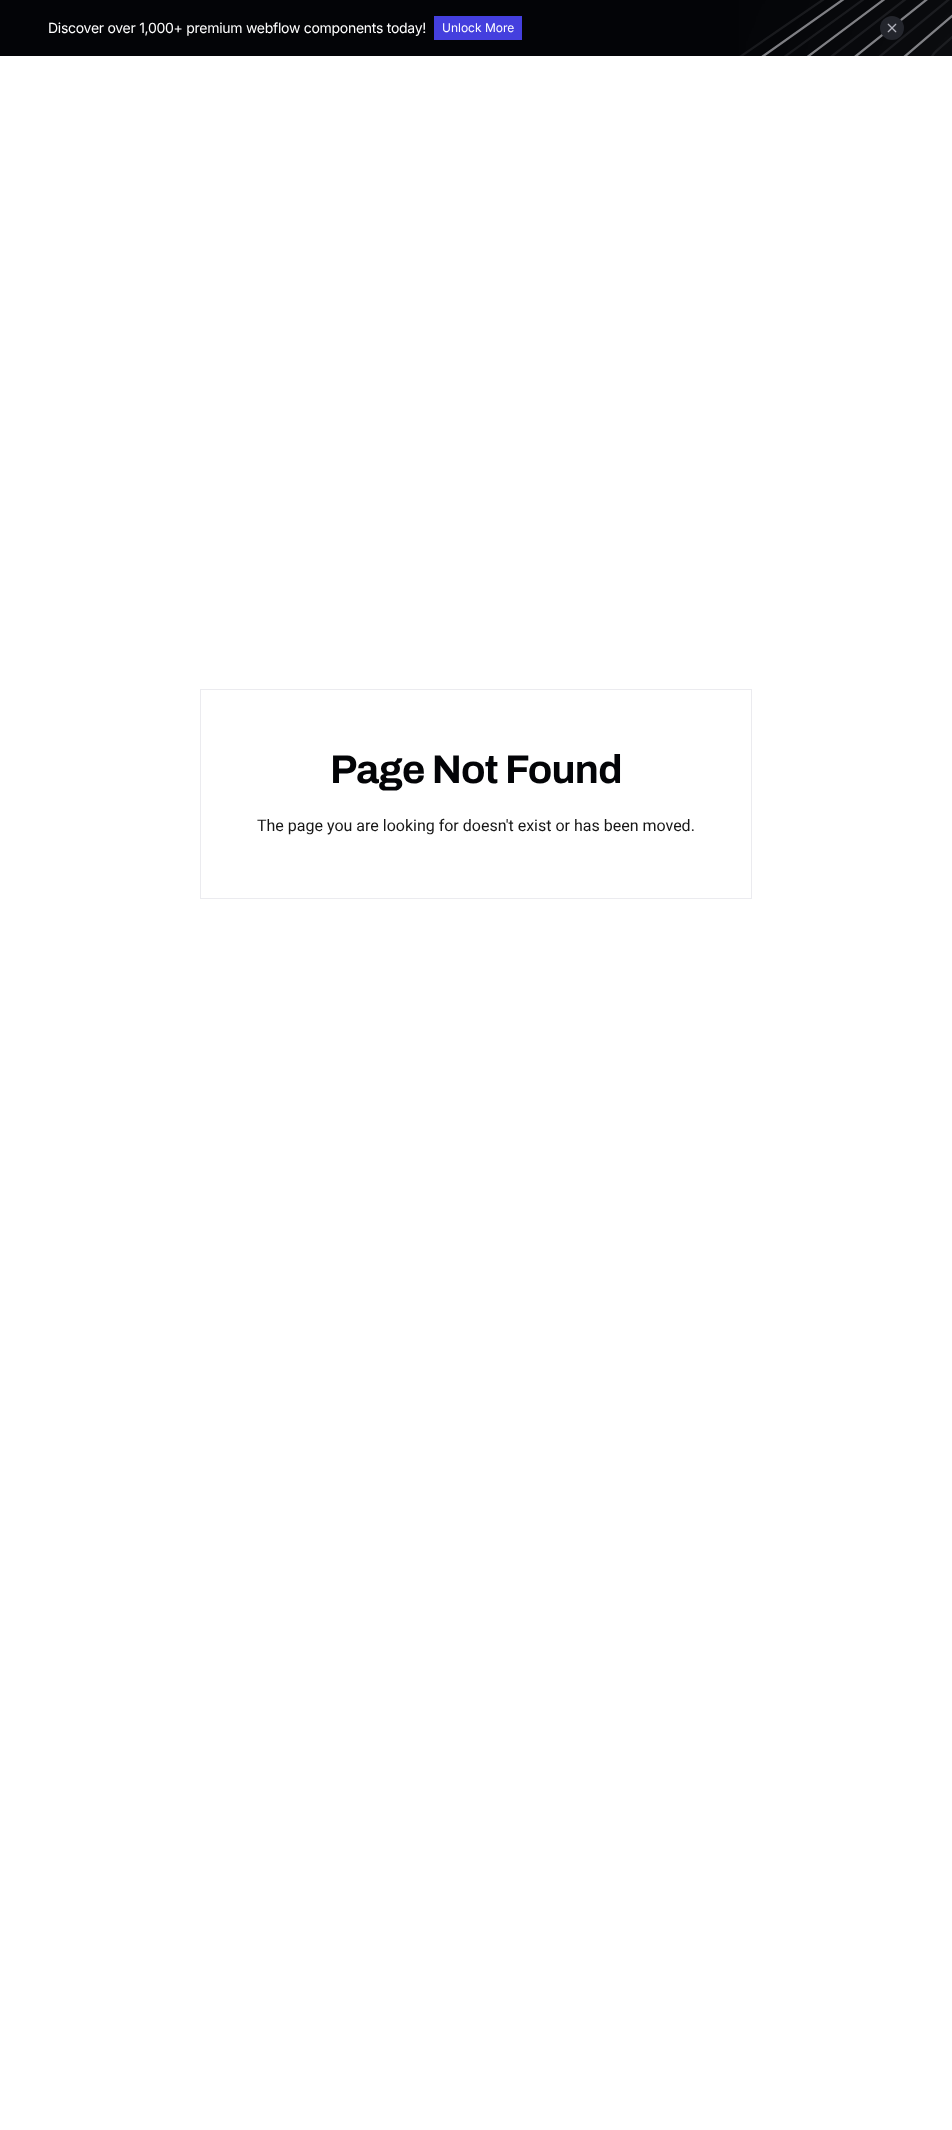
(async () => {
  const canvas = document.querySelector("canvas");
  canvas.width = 952;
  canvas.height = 2130;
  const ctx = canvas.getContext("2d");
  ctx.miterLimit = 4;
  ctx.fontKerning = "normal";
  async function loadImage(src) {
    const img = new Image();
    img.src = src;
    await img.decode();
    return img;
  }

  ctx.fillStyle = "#ffffff";
  ctx.fillRect(0, 0, 952, 2130);
  ctx.fillStyle = "#030407";
  ctx.fillRect(0, 0, 952, 56);
  ctx.drawImage(await loadImage("img/1.png"), 739, 0, 213, 56);
  ctx.fillStyle = "#443fde";
  ctx.fillRect(434, 16, 88, 24);
  ctx.fillStyle = "#24262d";
  ctx.beginPath();
  ctx.arc(892, 28, 12, 0, Math.PI * 2);
  ctx.fill();
  ctx.drawImage(await loadImage("img/2.png"), 887, 23, 10, 10);
  ctx.strokeStyle = "#ebebef";
  ctx.strokeRect(200.5, 689.5, 551, 209);
  ctx.letterSpacing = "-0.28px";
  ctx.font = "14px Inter";
  ctx.fillStyle = "#ffffff";
  ctx.fillText("Discover over 1,000+ premium webflow components today!", 48, 33);
  ctx.letterSpacing = "0px";
  ctx.font = "12px Inter";
  ctx.fillText("Unlock More", 442, 32);
  ctx.letterSpacing = "-0.75px";
  ctx.font = "bold 40px Archivo";
  ctx.fillStyle = "#030407";
  ctx.fillText("Page Not Found", 330, 783);
  ctx.letterSpacing = "0px";
  ctx.font = "16px Roboto";
  ctx.fillStyle = "#171717";
  ctx.fillText("The page you are looking for doesn't exist or has been moved.", 257, 831);
})();
